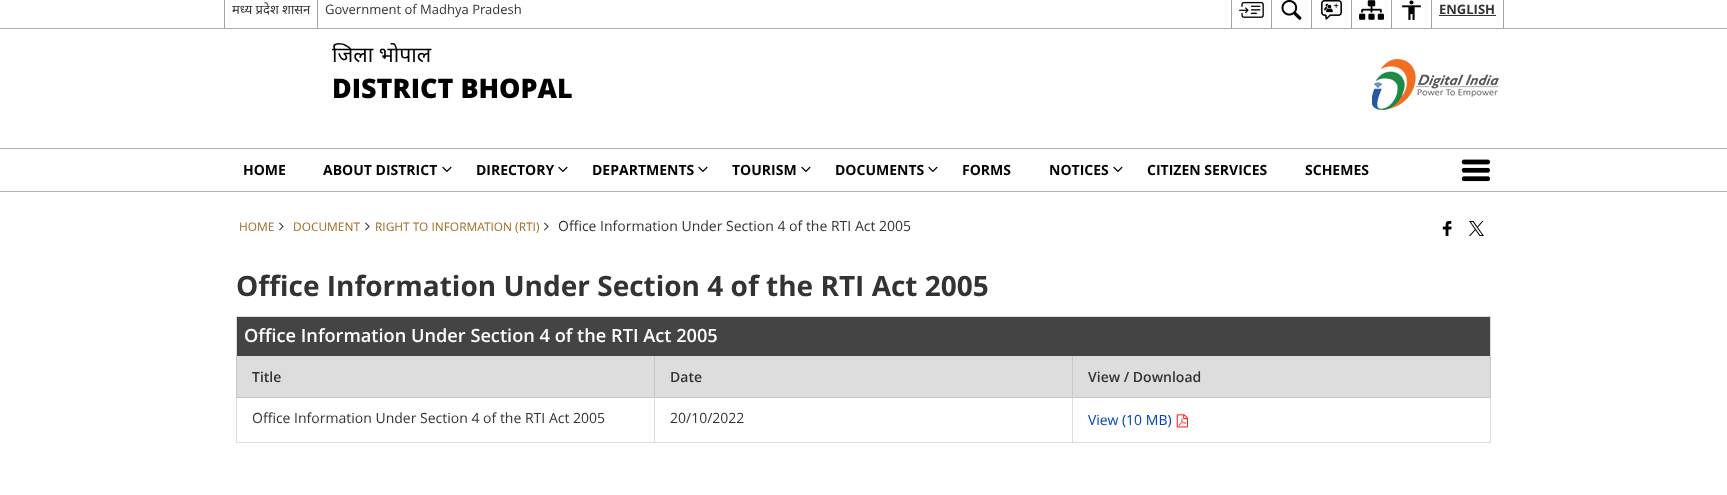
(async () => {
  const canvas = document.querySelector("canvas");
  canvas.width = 1727;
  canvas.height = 495;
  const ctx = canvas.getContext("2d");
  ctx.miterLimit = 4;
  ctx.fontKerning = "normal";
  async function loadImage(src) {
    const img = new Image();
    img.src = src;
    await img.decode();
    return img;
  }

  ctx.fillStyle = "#ffffff";
  ctx.fillRect(0, 0, 1727, 495);
  for (const [x, y, w, h, color] of [
    [0, 28, 1727, 1, "#ababab"],
    [224, 0, 1, 28, "#a3a3a3"],
    [317, 0, 1, 28, "#a3a3a3"],
    [1231, 0, 1, 28, "#a3a3a3"],
  ]) {
    ctx.fillStyle = color;
    ctx.fillRect(x, y, w, h);
  }
  ctx.drawImage(await loadImage("img/1.png"), 1239, 1, 25, 17);
  ctx.fillRect(1271, 0, 1, 28);
  ctx.drawImage(await loadImage("img/2.png"), 1281, 0, 21, 20);
  ctx.fillRect(1311, 0, 1, 28);
  ctx.drawImage(await loadImage("img/3.png"), 1321, 0, 21, 20);
  ctx.fillRect(1351, 0, 1, 28);
  ctx.drawImage(await loadImage("img/4.png"), 1359, 0, 25, 20);
  ctx.fillRect(1391, 0, 1, 28);
  ctx.drawImage(await loadImage("img/5.png"), 1402, 0, 19, 20);
  for (const [x, y, w, h, color] of [
    [1503, 0, 1, 28, "#a3a3a3"],
    [1431, 0, 1, 28, "#a3a3a3"],
    [1439, 15, 57, 1, "#333333"],
  ]) {
    ctx.fillStyle = color;
    ctx.fillRect(x, y, w, h);
  }
  ctx.drawImage(await loadImage("img/6.png"), 1372, 59, 127, 51);
  ctx.fillStyle = "#b3b3b3";
  ctx.fillRect(0, 148, 1727, 1);
  ctx.fillRect(0, 191, 1727, 1);
  ctx.drawImage(await loadImage("img/7.png"), 442, 166, 10, 7);
  ctx.drawImage(await loadImage("img/7.png"), 558, 166, 10, 7);
  ctx.drawImage(await loadImage("img/7.png"), 698, 166, 10, 7);
  ctx.drawImage(await loadImage("img/7.png"), 801, 166, 10, 7);
  ctx.drawImage(await loadImage("img/7.png"), 928, 166, 10, 7);
  ctx.drawImage(await loadImage("img/7.png"), 1113, 166, 10, 7);
  ctx.drawImage(await loadImage("img/8.png"), 1461, 159, 30, 23);
  ctx.drawImage(await loadImage("img/9.png"), 279, 222, 5, 9);
  ctx.drawImage(await loadImage("img/9.png"), 365, 222, 5, 9);
  ctx.drawImage(await loadImage("img/9.png"), 544, 222, 5, 9);
  ctx.drawImage(await loadImage("img/10.png"), 1442, 221, 10, 15);
  ctx.drawImage(await loadImage("img/11.png"), 1469, 221, 15, 15);
  for (const [x, y, w, h, color] of [
    [236, 316, 1255, 1, "#dddddd"],
    [1490, 316, 1, 127, "#dddddd"],
    [236, 442, 1255, 1, "#dddddd"],
    [236, 316, 1, 127, "#dddddd"],
    [237, 317, 1253, 39, "#444444"],
    [237, 356, 417, 41, "#dddddd"],
    [1490, 356, 1, 42, "#c7c7c7"],
    [1072, 397, 1, 46, "#dddddd"],
    [1072, 397, 419, 1, "#c7c7c7"],
    [1072, 356, 1, 42, "#c7c7c7"],
    [654, 397, 1, 46, "#dddddd"],
    [654, 397, 419, 1, "#c7c7c7"],
    [654, 356, 1, 42, "#c7c7c7"],
    [236, 397, 419, 1, "#c7c7c7"],
    [236, 356, 1, 42, "#c7c7c7"],
    [655, 356, 417, 41, "#dddddd"],
    [1073, 356, 417, 41, "#dddddd"],
  ]) {
    ctx.fillStyle = color;
    ctx.fillRect(x, y, w, h);
  }
  ctx.drawImage(await loadImage("img/12.png"), 1176, 414, 12, 14);
  ctx.font = "13px Noto Sans";
  ctx.fillStyle = "#333333";
  ctx.fillText("मध्य प्रदेश शासन", 232, 14);
  ctx.font = "13px Open Sans";
  ctx.fillText("Government of Madhya Pradesh", 325, 14);
  ctx.font = "bold 13px Open Sans";
  ctx.fillText("ENGLISH", 1439, 14);
  ctx.font = "21.25px Noto Sans";
  ctx.fillStyle = "#000000";
  ctx.fillText("जिला भोपाल", 332, 62);
  ctx.font = "800 26.9px Open Sans";
  ctx.fillText("DISTRICT BHOPAL", 332, 98);
  ctx.font = "bold 14px Open Sans";
  for (const [text, x, y] of [
    ["HOME", 243, 175],
    ["ABOUT DISTRICT", 323, 175],
    ["DIRECTORY", 476, 175],
    ["DEPARTMENTS", 592, 175],
    ["TOURISM", 732, 175],
    ["DOCUMENTS", 835, 175],
    ["FORMS", 962, 175],
    ["NOTICES", 1049, 175],
    ["CITIZEN SERVICES", 1147, 175],
    ["SCHEMES", 1305, 175],
  ]) {
    ctx.fillText(text, x, y);
  }
  ctx.font = "11.9px Open Sans";
  ctx.fillStyle = "#9e6b22";
  for (const [text, x, y] of [
    ["HOME", 239, 231],
    ["DOCUMENT", 293, 231],
    ["RIGHT TO INFORMATION (RTI)", 375, 231],
  ]) {
    ctx.fillText(text, x, y);
  }
  ctx.font = "14px Open Sans";
  ctx.fillStyle = "#333333";
  ctx.fillText("Office Information Under Section 4 of the RTI Act 2005", 558, 231);
  ctx.font = "bold 28px Open Sans";
  ctx.fillText("Office Information Under Section 4 of the RTI Act 2005", 236, 296);
  ctx.font = "600 18.2px Open Sans";
  ctx.fillStyle = "#ffffff";
  ctx.fillText("Office Information Under Section 4 of the RTI Act 2005", 244, 342);
  ctx.font = "600 14px Open Sans";
  ctx.fillStyle = "#333333";
  for (const [text, x, y] of [
    ["Title", 252, 382],
    ["Date", 670, 382],
    ["View / Download", 1088, 382],
  ]) {
    ctx.fillText(text, x, y);
  }
  ctx.font = "14px Open Sans";
  ctx.fillText("Office Information Under Section 4 of the RTI Act 2005", 252, 423);
  ctx.fillText("20/10/2022", 670, 423);
  ctx.fillStyle = "#0042bf";
  ctx.fillText("View (10 MB)", 1088, 425);
})();
